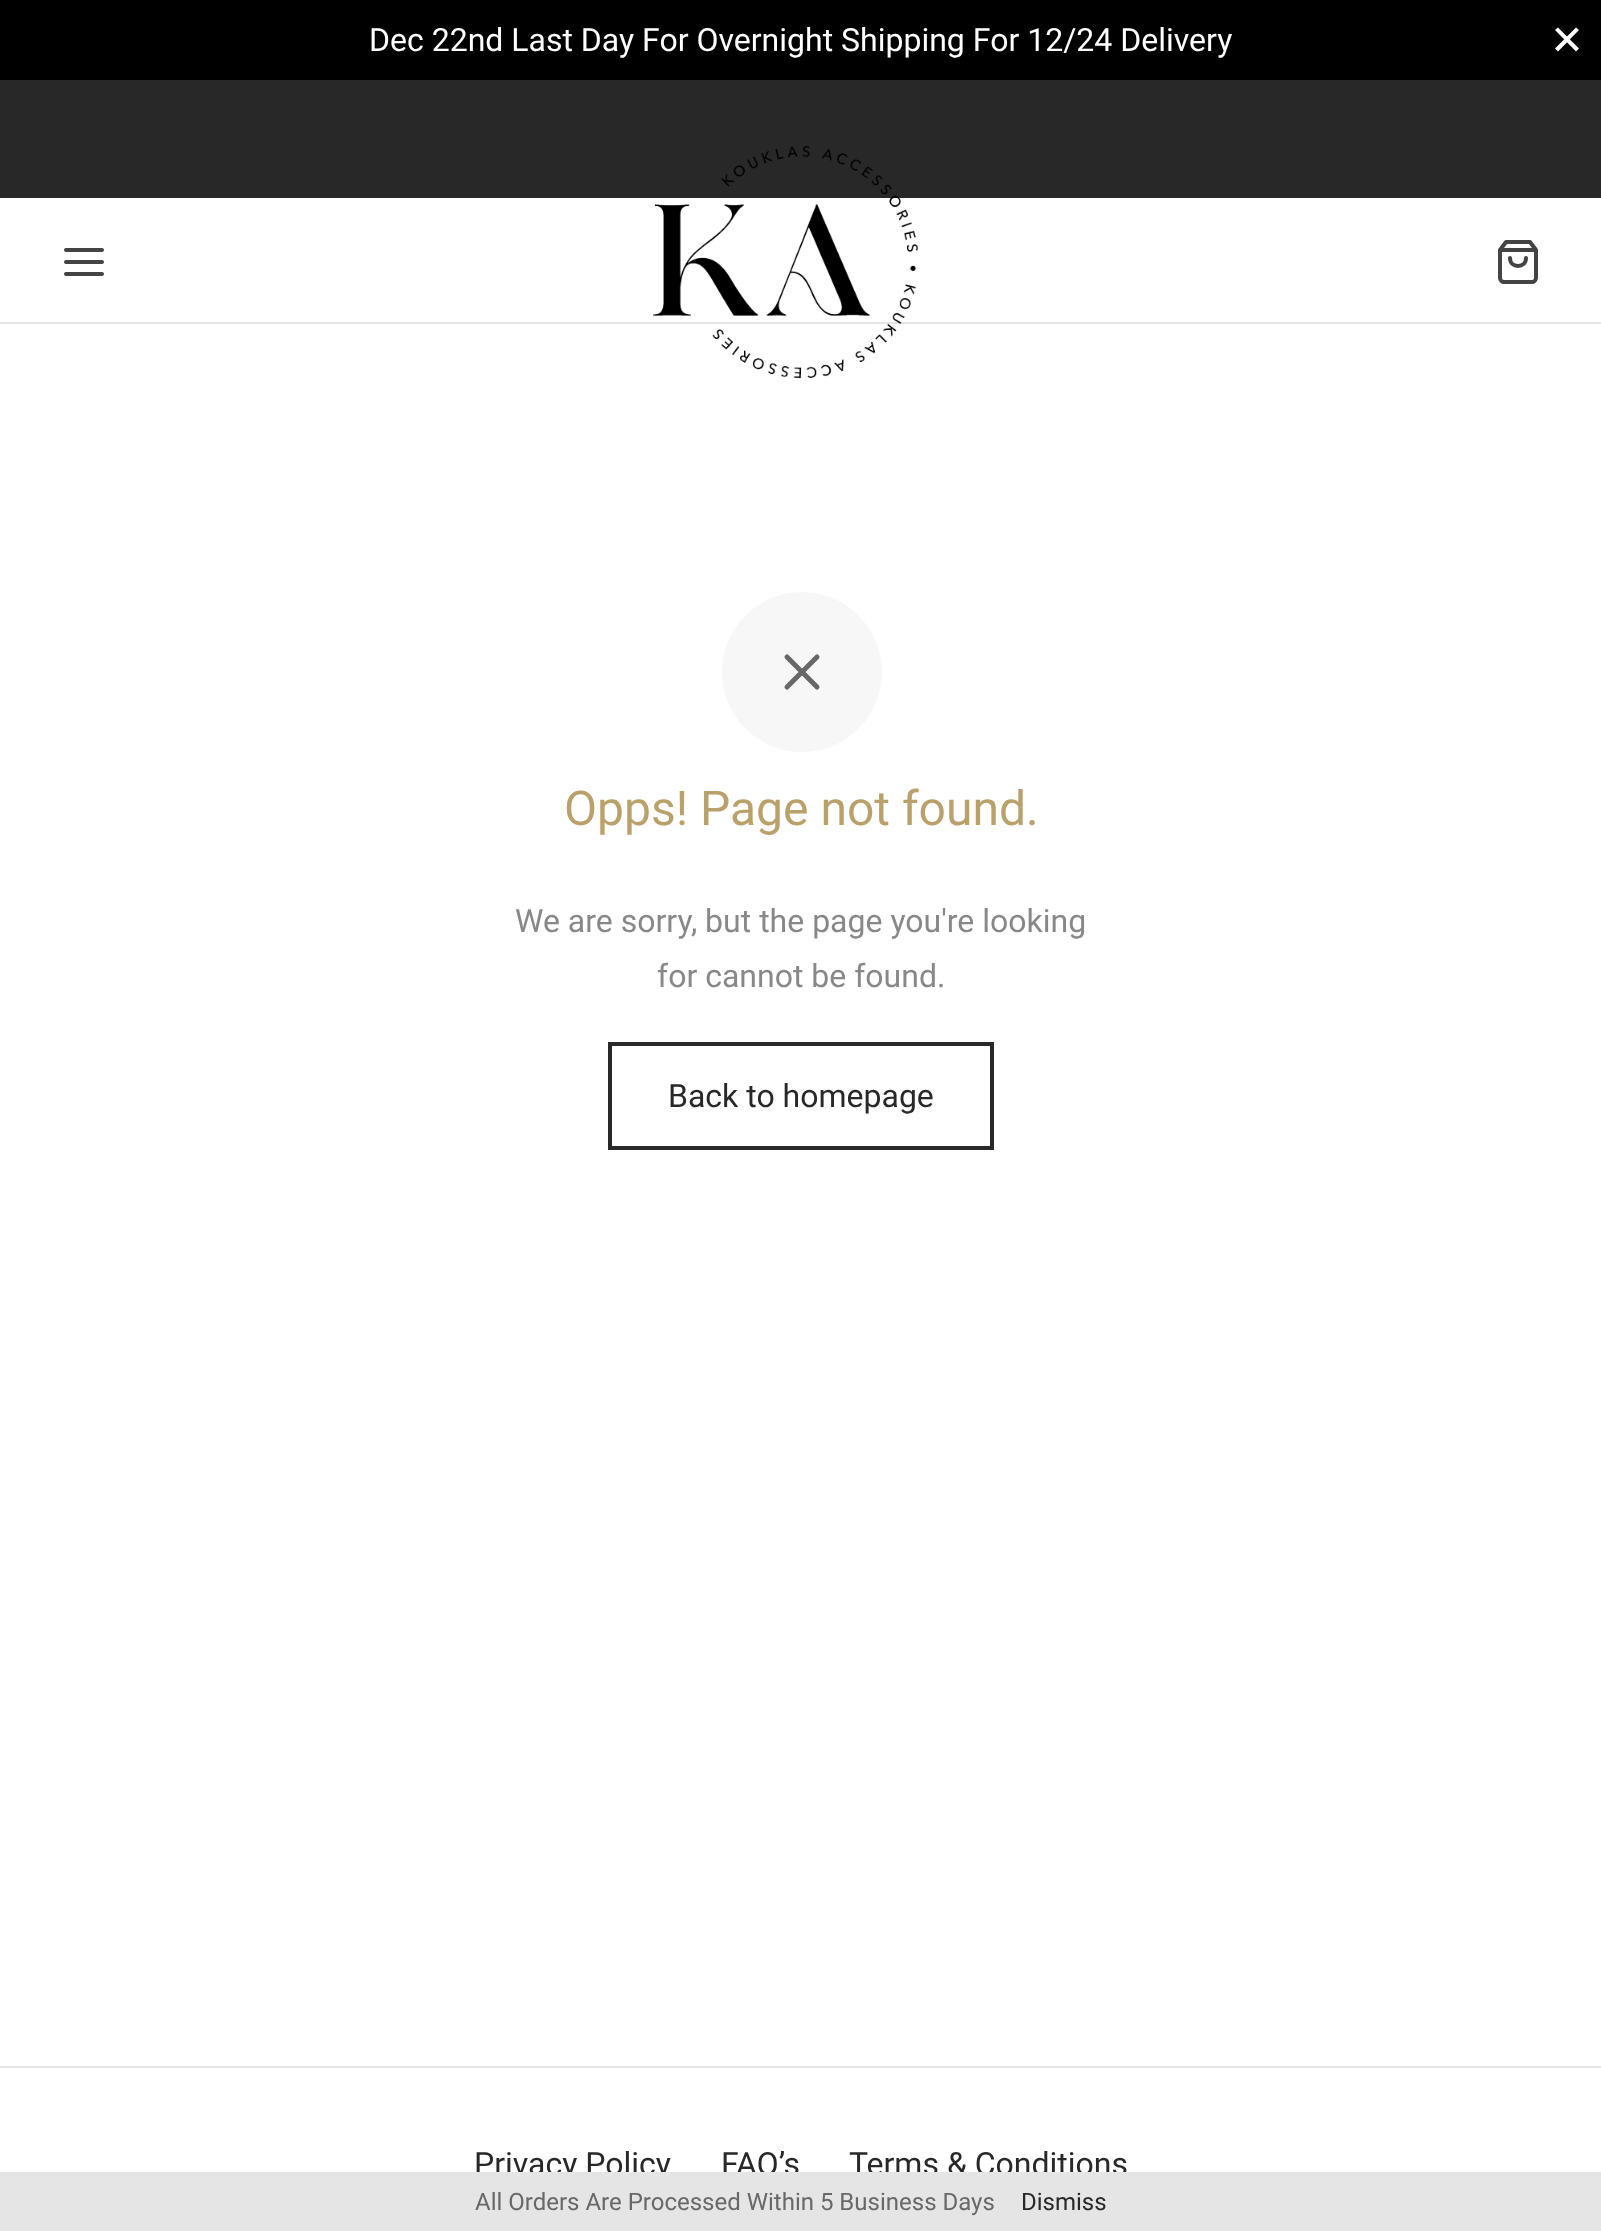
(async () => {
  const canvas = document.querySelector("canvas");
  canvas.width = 1601;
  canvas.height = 2231;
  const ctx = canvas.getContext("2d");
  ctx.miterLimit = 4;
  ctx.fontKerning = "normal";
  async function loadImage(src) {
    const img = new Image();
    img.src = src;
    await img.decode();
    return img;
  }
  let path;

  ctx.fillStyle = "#ffffff";
  ctx.fillRect(0, 0, 1601, 2231);
  ctx.fillStyle = "#000000";
  ctx.fillRect(0, 0, 1601, 80);
  ctx.fillStyle = "#ffffff";
  path = new Path2D("M1558 27.5L1579 48.5L1576 51.5L1555 30Z");
  ctx.fill(path);
  path = new Path2D("M1555 48.5L1576 27.5L1579 30L1558 51.5Z");
  ctx.fill(path);
  ctx.fillStyle = "#282828";
  ctx.fillRect(0, 80, 1601, 118);
  path = new Path2D("M66 262H102M66 250H102M66 274H102");
  ctx.strokeStyle = "#444444";
  ctx.lineWidth = 4;
  ctx.lineCap = "round";
  ctx.lineJoin = "round";
  ctx.stroke(path);
  ctx.drawImage(await loadImage("img/1.png"), 653, 146, 266, 233);
  path = new Path2D("M1506 242L1500 250V278C1500 280 1502 282 1504 282H1532C1534 282 1536 280 1536 278V250L1530 242ZM1500 250H1536M1526 258C1526 268.5 1510 268.5 1510 258");
  ctx.stroke(path);
  ctx.fillStyle = "rgba(0, 0, 0, 0.1)";
  ctx.fillRect(0, 322, 1601, 2);
  ctx.fillStyle = "#f7f7f7";
  ctx.beginPath();
  ctx.arc(802, 672, 80, 0, Math.PI * 2);
  ctx.fill();
  path = new Path2D("M817 657L787 687M787 657L817 687");
  ctx.strokeStyle = "#686868";
  ctx.lineWidth = 5;
  ctx.stroke(path);
  ctx.strokeStyle = "#282828";
  ctx.lineWidth = 4;
  ctx.lineJoin = "miter";
  ctx.strokeRect(610, 1044, 382, 104);
  ctx.fillStyle = "#e6e6e6";
  ctx.fillRect(0, 2066, 1601, 2);
  ctx.font = "32px Roboto";
  ctx.fillStyle = "#ffffff";
  ctx.fillText("Dec 22nd Last Day For Overnight Shipping For 12/24 Delivery", 369, 51);
  ctx.font = "48px Roboto";
  ctx.fillStyle = "#b9a16b";
  ctx.fillText("Opps! Page not found.", 564, 825);
  ctx.font = "32px Roboto";
  ctx.fillStyle = "#888888";
  ctx.fillText("We are sorry, but the page you're looking", 515, 932);
  ctx.fillText("for cannot be found.", 657, 987);
  ctx.fillStyle = "#282828";
  for (const [text, x, y] of [
    ["Back to homepage", 668, 1107],
    ["Privacy Policy", 474, 2175],
    ["FAQ’s", 721, 2175],
    ["Terms & Conditions", 849, 2175],
  ]) {
    ctx.fillText(text, x, y);
  }
  ctx.fillStyle = "#e5e5e5";
  ctx.fillRect(0, 2172, 1601, 59);
  ctx.font = "24px Roboto";
  ctx.fillStyle = "#686868";
  ctx.fillText("All Orders Are Processed Within 5 Business Days", 475, 2210);
  ctx.fillStyle = "#282828";
  ctx.fillText("Dismiss", 1021, 2210);
})();
